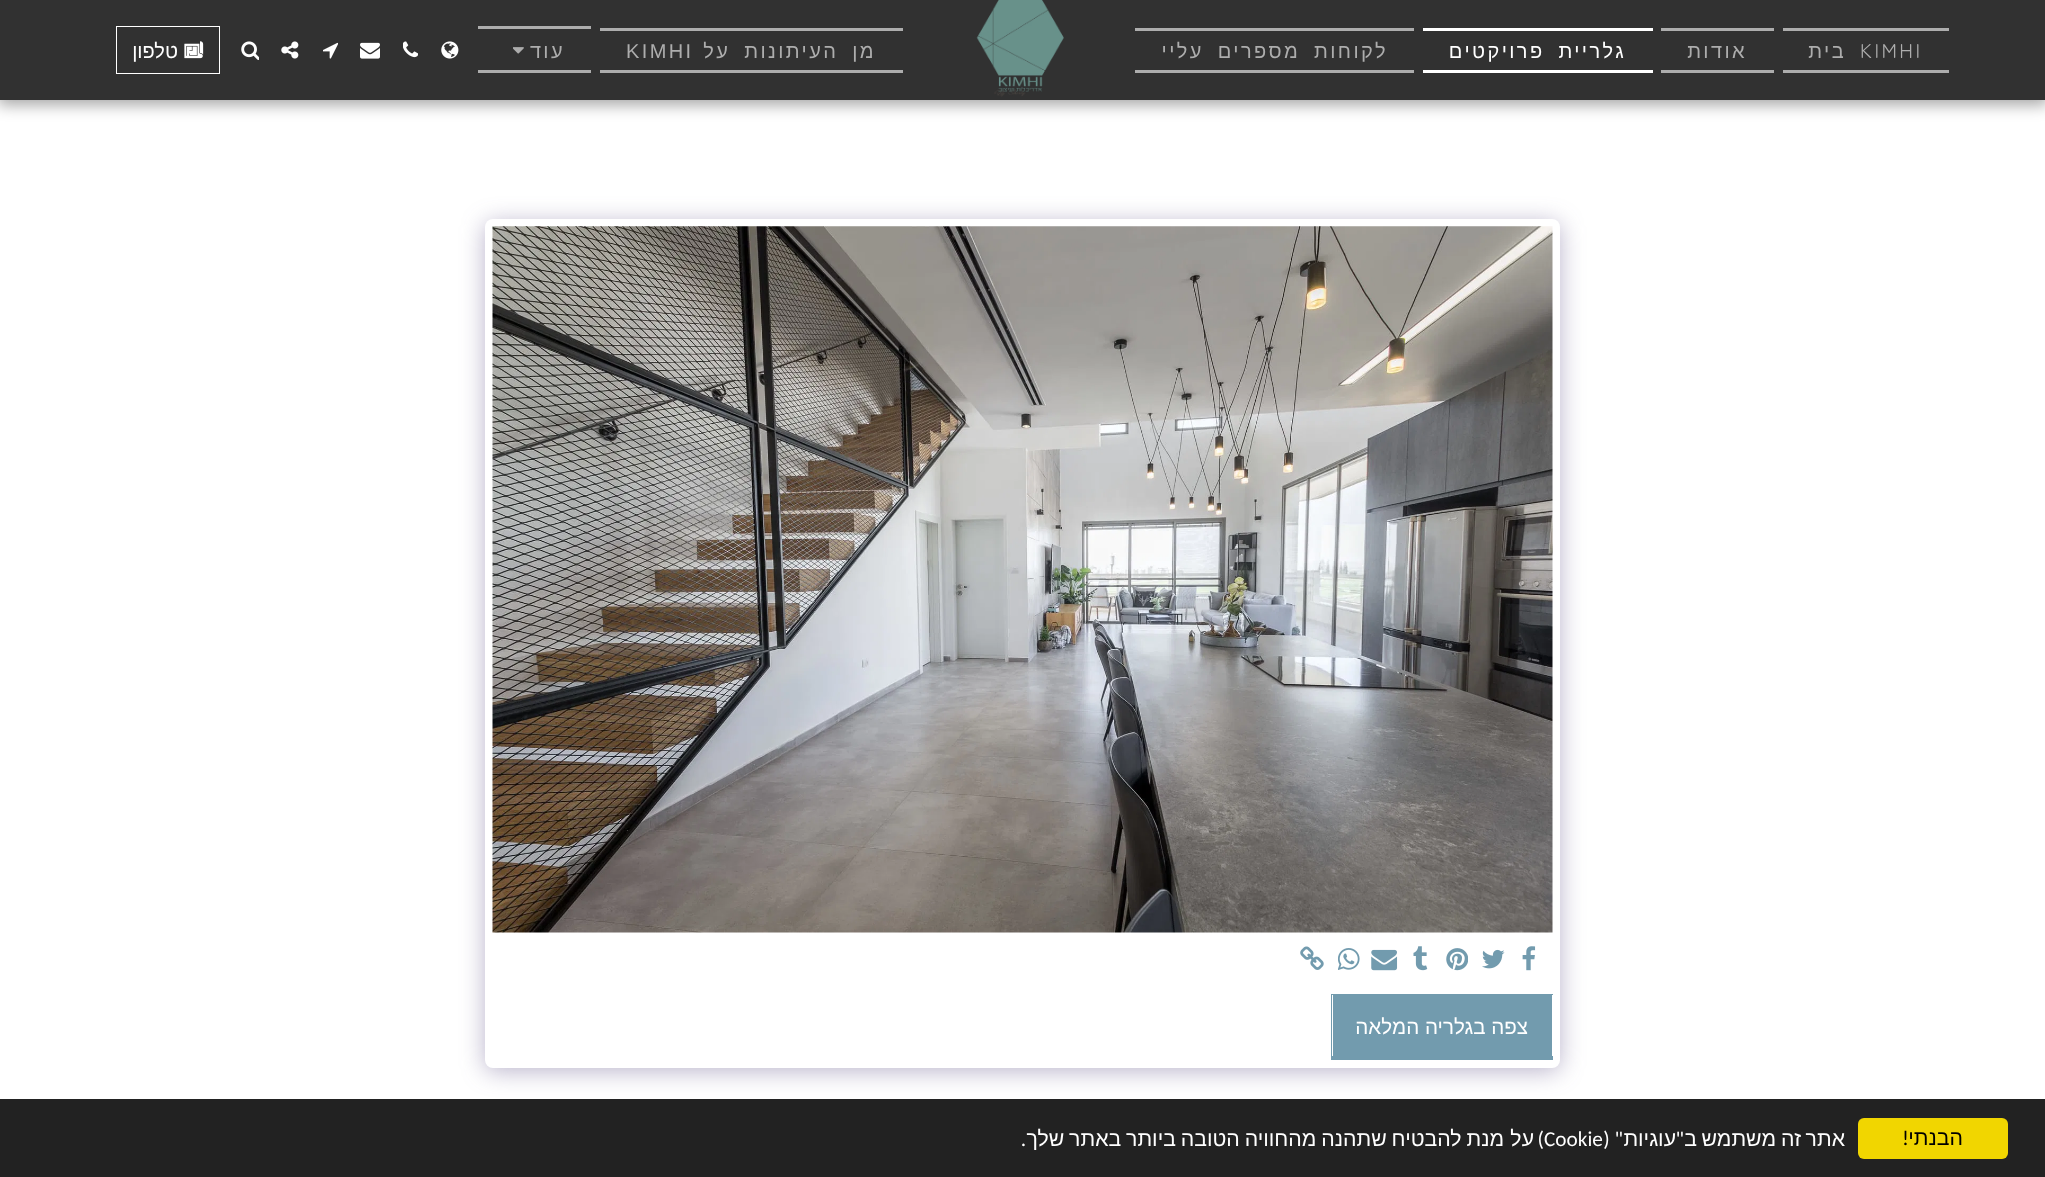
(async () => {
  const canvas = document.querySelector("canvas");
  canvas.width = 2045;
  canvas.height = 1177;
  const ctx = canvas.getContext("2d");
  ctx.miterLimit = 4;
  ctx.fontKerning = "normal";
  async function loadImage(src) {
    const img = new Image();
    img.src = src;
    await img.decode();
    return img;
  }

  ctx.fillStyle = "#ffffff";
  ctx.fillRect(0, 0, 2045, 1177);
  ctx.fillStyle = "rgba(0, 0, 0, 0.35)";
  ctx.filter = "blur(7.5px)";
  ctx.beginPath();
  ctx.rect(-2, 0, 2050, 105);
  ctx.fill();
  ctx.filter = "none";
  for (const [x, y, w, h, color] of [
    [0, 0, 2045, 100, "#313131"],
    [1783, 28, 166, 3, "#adadad"],
    [1783, 70, 166, 3, "#adadad"],
    [1661, 28, 113, 3, "#adadad"],
    [1661, 70, 113, 3, "#adadad"],
    [1423, 28, 230, 3, "#ffffff"],
    [1423, 70, 230, 3, "#ffffff"],
    [1135, 28, 279, 3, "#adadad"],
    [1135, 70, 279, 3, "#adadad"],
  ]) {
    ctx.fillStyle = color;
    ctx.fillRect(x, y, w, h);
  }
  ctx.drawImage(await loadImage("img/1.png"), 976, 0, 88, 97);
  for (const [x, y, w, h, color] of [
    [600, 28, 303, 3, "#adadad"],
    [600, 70, 303, 3, "#adadad"],
    [478, 26, 113, 3, "#adadad"],
    [478, 70, 113, 3, "#adadad"],
  ]) {
    ctx.fillStyle = color;
    ctx.fillRect(x, y, w, h);
  }
  ctx.drawImage(await loadImage("img/2.png"), 513, 47, 11, 7);
  ctx.drawImage(await loadImage("img/3.png"), 441, 41, 18, 18);
  ctx.drawImage(await loadImage("img/4.png"), 403, 41, 15, 17);
  ctx.drawImage(await loadImage("img/5.png"), 360, 42, 20, 17);
  ctx.drawImage(await loadImage("img/6.png"), 323, 42, 15, 17);
  ctx.drawImage(await loadImage("img/7.png"), 281, 41, 18, 18);
  ctx.drawImage(await loadImage("img/8.png"), 241, 41, 18, 19);
  ctx.strokeStyle = "#ffffff";
  ctx.strokeRect(116.5, 26.5, 103, 47);
  ctx.drawImage(await loadImage("img/9.png"), 184, 41, 20, 18);
  ctx.fillStyle = "rgba(77, 63, 122, 0.4)";
  ctx.filter = "blur(12.5px)";
  ctx.beginPath();
  ctx.roundRect(485, 223, 1075, 848, 8);
  ctx.fill();
  ctx.filter = "none";
  ctx.fillStyle = "#ffffff";
  ctx.beginPath();
  ctx.roundRect(485, 219, 1075, 849, 8);
  ctx.fill();
  ctx.drawImage(await loadImage("img/10.png"), 492, 226, 1061, 707);
  ctx.drawImage(await loadImage("img/11.png"), 1522, 946, 14, 25);
  ctx.drawImage(await loadImage("img/12.png"), 1482, 949, 23, 20);
  ctx.drawImage(await loadImage("img/13.png"), 1446, 948, 22, 23);
  ctx.drawImage(await loadImage("img/14.png"), 1413, 946, 15, 25);
  ctx.drawImage(await loadImage("img/15.png"), 1371, 949, 27, 22);
  ctx.drawImage(await loadImage("img/16.png"), 1338, 948, 22, 22);
  ctx.drawImage(await loadImage("img/17.png"), 1300, 946, 24, 24);
  for (const [x, y, w, h, color] of [
    [1333, 995, 218, 61, "#729bae"],
    [1331, 994, 222, 1, "#729bae"],
    [1551, 994, 1, 66, "#729bae"],
    [1331, 1056, 222, 4, "#729bae"],
    [1331, 994, 1, 66, "#729bae"],
    [0, 1099, 2045, 78, "#222222"],
  ]) {
    ctx.fillStyle = color;
    ctx.fillRect(x, y, w, h);
  }
  ctx.fillStyle = "#f1d600";
  ctx.beginPath();
  ctx.roundRect(1858, 1118, 150, 41, 6);
  ctx.fill();
  ctx.letterSpacing = "2.4px";
  ctx.font = "20px Zen Maru Gothic";
  ctx.fillStyle = "#adadad";
  ctx.fillText("KIMHI", 1860, 58);
  ctx.direction = "rtl";
  ctx.font = "20px Liberation Sans";
  ctx.fillText("בית", 1846, 58);
  ctx.fillText("אודות", 1747, 58);
  ctx.wordSpacing = "6px";
  ctx.fillStyle = "#ffffff";
  ctx.fillText("גלריית פרויקטים", 1626, 58);
  ctx.fillStyle = "#adadad";
  ctx.fillText("לקוחות מספרים עליי", 1388, 58);
  ctx.fillText("מן העיתונות על", 876, 58);
  ctx.wordSpacing = "0px";
  ctx.direction = "ltr";
  ctx.fillText("KIMHI", 626, 58);
  ctx.direction = "rtl";
  ctx.fillText("עוד", 565, 58);
  ctx.letterSpacing = "0px";
  ctx.fillStyle = "#ffffff";
  ctx.fillText("טלפון", 178, 58);
  ctx.font = "20.6px Liberation Sans";
  ctx.fillText("צפה בגלריה המלאה", 1528, 1034);
  ctx.font = "21.25px Liberation Sans";
  ctx.fillStyle = "#000000";
  ctx.fillText("הבנתי", 1963, 1145);
  ctx.font = "21.25px Carlito";
  ctx.fillText("!", 1909, 1145);
  ctx.font = "21.25px Liberation Sans";
  ctx.fillStyle = "#ffffff";
  for (const [text, x, y] of [
    ["אתר", 1845, 1146],
    ["זה", 1801, 1146],
    ["משתמש", 1776, 1146],
    ["ב", 1697, 1146],
  ]) {
    ctx.fillText(text, x, y);
  }
  ctx.font = "21.25px Carlito";
  ctx.fillText("\"", 1684, 1146);
  ctx.font = "21.25px Liberation Sans";
  ctx.fillText("עוגיות", 1676, 1146);
  ctx.font = "21.25px Carlito";
  ctx.fillText("\" (", 1623, 1146);
  ctx.direction = "ltr";
  ctx.fillText("Cookie", 1544, 1146);
  ctx.direction = "rtl";
  ctx.fillText(")", 1544, 1146);
  ctx.font = "21.25px Liberation Sans";
  ctx.fillText("על", 1534, 1146);
  ctx.wordSpacing = "-1px";
  ctx.fillText("מנת להבטיח שתהנה מהחוויה הטובה ביותר באתר שלך", 1504, 1146);
  ctx.wordSpacing = "0px";
  ctx.font = "21.25px Carlito";
  ctx.fillText(".", 1026, 1146);
})();
